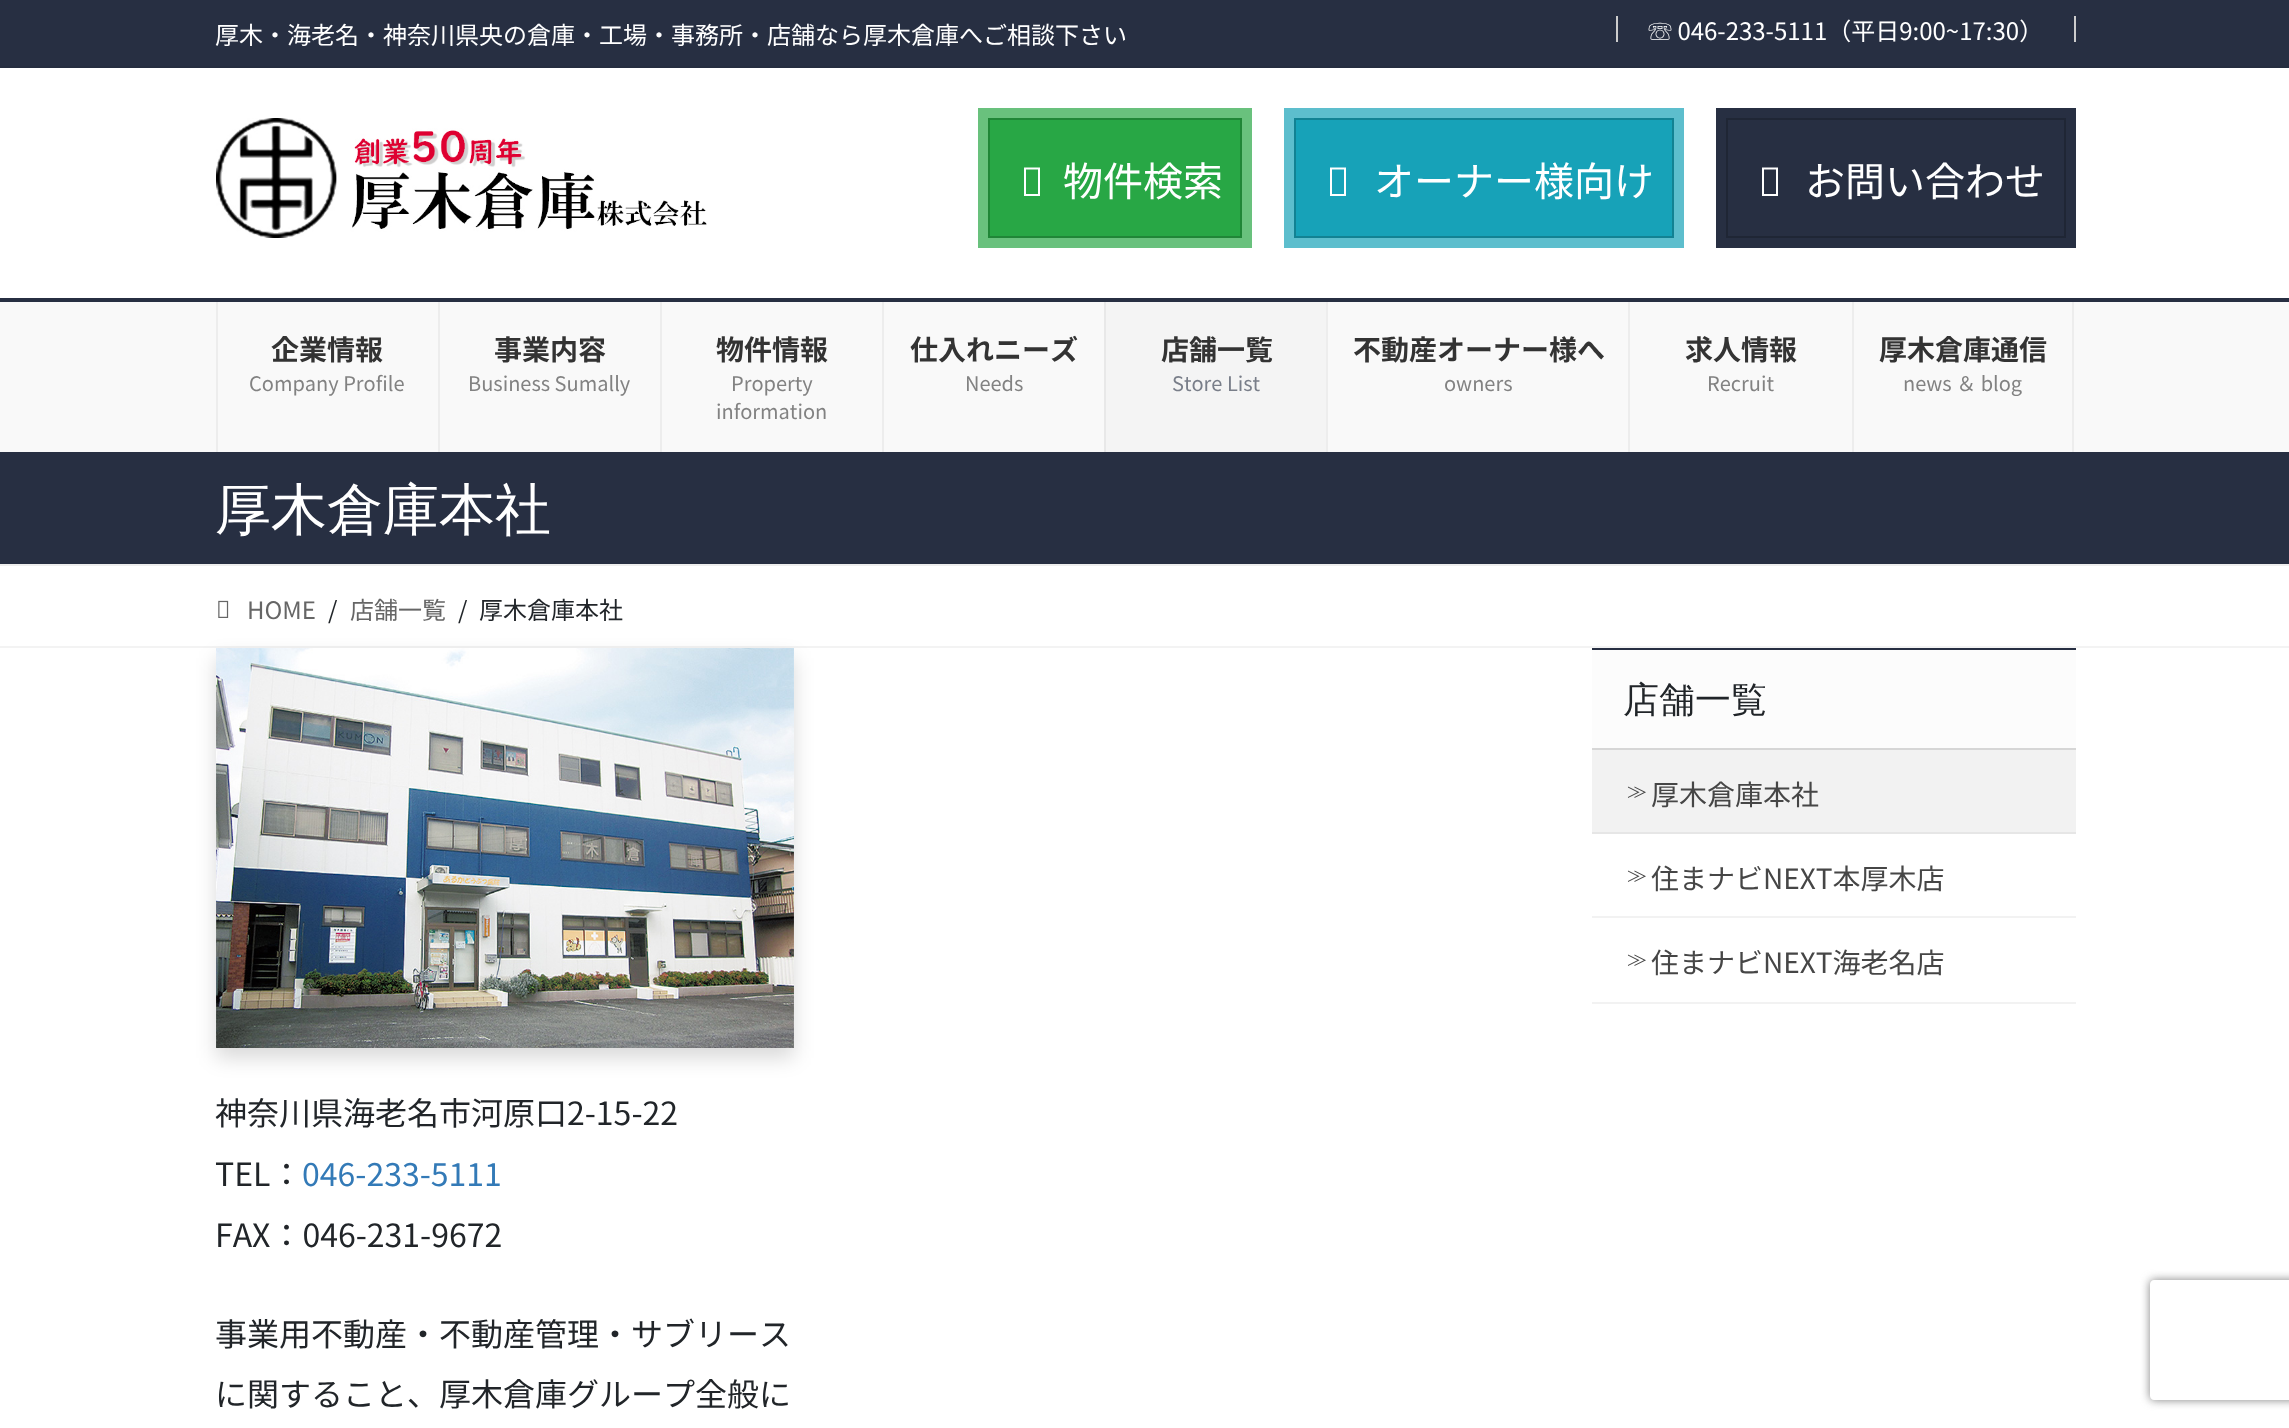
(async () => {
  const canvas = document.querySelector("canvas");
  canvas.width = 2289;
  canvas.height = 1428;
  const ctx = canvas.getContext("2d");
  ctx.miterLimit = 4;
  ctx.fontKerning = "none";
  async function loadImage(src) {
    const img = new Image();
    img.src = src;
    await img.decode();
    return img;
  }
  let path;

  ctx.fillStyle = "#ffffff";
  ctx.fillRect(0, 0, 2289, 1428);
  for (const [x, y, w, h, color] of [
    [0, 0, 2289, 66, "#272f42"],
    [0, 66, 2289, 2, "#252d3f"],
    [2074, 16, 2, 26, "#cccccc"],
    [1616, 16, 2, 26, "#cccccc"],
  ]) {
    ctx.fillStyle = color;
    ctx.fillRect(x, y, w, h);
  }
  ctx.drawImage(await loadImage("img/1.png"), 216, 118, 491, 120);
  ctx.fillStyle = "#28a745";
  ctx.beginPath();
  ctx.rect(989, 119, 252, 118);
  ctx.fill();
  ctx.strokeStyle = "#208637";
  ctx.lineWidth = 2;
  ctx.stroke();
  ctx.strokeStyle = "#69c17d";
  ctx.lineWidth = 10;
  ctx.strokeRect(983, 113, 264, 130);
  ctx.fillStyle = "#ffffff";
  path = new Path2D("M1024 196V167.5H1040V196ZM1026 194H1038V169.5H1026Z");
  ctx.fill(path);
  ctx.fillStyle = "#17a2b8";
  ctx.beginPath();
  ctx.rect(1295, 119, 378, 118);
  ctx.fill();
  ctx.strokeStyle = "#128293";
  ctx.lineWidth = 2;
  ctx.stroke();
  ctx.strokeStyle = "#5dbecd";
  ctx.lineWidth = 10;
  ctx.strokeRect(1289, 113, 390, 130);
  ctx.fillStyle = "#ffffff";
  path = new Path2D("M1330 196V167.5H1346V196ZM1332 194H1344V169.5H1332Z");
  ctx.fill(path);
  ctx.fillStyle = "#272f42";
  ctx.fillRect(1716, 108, 360, 140);
  ctx.strokeStyle = "#1f2635";
  ctx.lineWidth = 2;
  ctx.strokeRect(1727, 119, 338, 118);
  ctx.fillStyle = "#ffffff";
  path = new Path2D("M1762 196V167.5H1778V196ZM1764 194H1776V169.5H1764Z");
  ctx.fill(path);
  for (const [x, y, w, h, color] of [
    [0, 302, 2289, 150, "#f9f9f9"],
    [0, 298, 2289, 4, "#272f42"],
    [216, 302, 2, 150, "#ededed"],
    [438, 302, 2, 150, "#ededed"],
    [660, 302, 2, 150, "#ededed"],
    [882, 302, 2, 150, "#ededed"],
    [1106, 302, 220, 150, "#f4f4f4"],
    [1104, 302, 2, 150, "#e8e8e8"],
    [1326, 302, 2, 150, "#ededed"],
    [1628, 302, 2, 150, "#ededed"],
    [2072, 302, 2, 150, "#ededed"],
    [1852, 302, 2, 150, "#ededed"],
    [0, 452, 2289, 112, "#272f42"],
    [0, 564, 2289, 2, "#eeeeee"],
    [0, 646, 2289, 2, "#f3f3f3"],
  ]) {
    ctx.fillStyle = color;
    ctx.fillRect(x, y, w, h);
  }
  ctx.drawImage(await loadImage("img/2.png"), 218, 600, 11, 18);
  for (const [x, y, w, h, color] of [
    [1592, 650, 484, 98, "#fcfcfc"],
    [1592, 648, 484, 2, "#272f42"],
    [1592, 748, 484, 2, "#d6d6d6"],
    [1592, 750, 484, 82, "#f2f2f2"],
    [1592, 832, 484, 2, "#e6e6e6"],
    [1592, 916, 484, 2, "#f2f2f2"],
    [1592, 1002, 484, 2, "#f2f2f2"],
  ]) {
    ctx.fillStyle = color;
    ctx.fillRect(x, y, w, h);
  }
  ctx.fillStyle = "rgba(0, 0, 0, 0.15)";
  ctx.filter = "blur(10px)";
  ctx.beginPath();
  ctx.rect(216, 658, 578, 400);
  ctx.fill();
  ctx.filter = "none";
  ctx.drawImage(await loadImage("img/3.png"), 216, 648, 578, 400);
  ctx.save();
  path = new Path2D("M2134 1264H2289V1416H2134ZM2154 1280H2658C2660 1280 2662 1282 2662 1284V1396C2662 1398 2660 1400 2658 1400H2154C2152 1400 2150 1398 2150 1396V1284C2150 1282 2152 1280 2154 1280Z");
  ctx.clip(path, "evenodd");
  ctx.fillStyle = "#808080";
  ctx.filter = "blur(5px)";
  ctx.beginPath();
  ctx.roundRect(2150, 1280, 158, 120, 4);
  ctx.fill();
  ctx.filter = "none";
  ctx.restore();
  ctx.font = "24px Noto Sans JP";
  ctx.fillStyle = "#ffffff";
  ctx.fillText("厚木・海老名・神奈川県央の倉庫・工場・事務所・店舗なら厚木倉庫へご相談下さい", 215, 44);
  ctx.fillText("☏ 046-233-5111（平日9:00~17:30）", 1648, 40);
  ctx.font = "40px Noto Sans JP";
  for (const [text, x, y] of [
    ["物件検索", 1063, 196],
    ["オーナー様向け", 1374, 196],
    ["お問い合わせ", 1805, 196],
  ]) {
    ctx.fillText(text, x, y);
  }
  ctx.font = "bold 28px Noto Sans JP";
  ctx.fillStyle = "#333333";
  ctx.fillText("企業情報", 271, 360);
  ctx.font = "20px Noto Sans JP";
  ctx.fillStyle = "#828282";
  ctx.fillText("Company Profile", 249, 391);
  ctx.font = "bold 28px Noto Sans JP";
  ctx.fillStyle = "#333333";
  ctx.fillText("事業内容", 494, 360);
  ctx.font = "20px Noto Sans JP";
  ctx.fillStyle = "#828282";
  ctx.fillText("Business Sumally", 468, 391);
  ctx.font = "bold 28px Noto Sans JP";
  ctx.fillStyle = "#333333";
  ctx.fillText("物件情報", 716, 360);
  ctx.font = "20px Noto Sans JP";
  ctx.fillStyle = "#828282";
  ctx.fillText("Property", 731, 391);
  ctx.fillText("information", 716, 419);
  ctx.font = "bold 28px Noto Sans JP";
  ctx.fillStyle = "#333333";
  ctx.fillText("仕入れニーズ", 910, 360);
  ctx.font = "20px Noto Sans JP";
  ctx.fillStyle = "#828282";
  ctx.fillText("Needs", 965, 391);
  ctx.font = "bold 28px Noto Sans JP";
  ctx.fillStyle = "#333333";
  ctx.fillText("店舗一覧", 1161, 360);
  ctx.font = "20px Noto Sans JP";
  ctx.fillStyle = "#797e89";
  ctx.fillText("Store List", 1172, 391);
  ctx.font = "bold 28px Noto Sans JP";
  ctx.fillStyle = "#333333";
  ctx.fillText("不動産オーナー様へ", 1353, 360);
  ctx.font = "20px Noto Sans JP";
  ctx.fillStyle = "#828282";
  ctx.fillText("owners", 1444, 391);
  ctx.font = "bold 28px Noto Sans JP";
  ctx.fillStyle = "#333333";
  ctx.fillText("求人情報", 1685, 360);
  ctx.font = "20px Noto Sans JP";
  ctx.fillStyle = "#828282";
  ctx.fillText("Recruit", 1707, 391);
  ctx.font = "bold 28px Noto Sans JP";
  ctx.fillStyle = "#333333";
  ctx.fillText("厚木倉庫通信", 1879, 360);
  ctx.font = "20px Noto Sans JP";
  ctx.fillStyle = "#828282";
  ctx.fillText("news ＆ blog", 1903, 391);
  ctx.font = "500 56px WenQuanYi Zen Hei";
  ctx.fillStyle = "#ffffff";
  ctx.fillText("厚木倉庫本社", 215, 529);
  ctx.font = "24px Noto Sans JP";
  ctx.fillStyle = "#666666";
  ctx.fillText("HOME", 247, 619);
  ctx.fillStyle = "#212529";
  ctx.fillText("/", 328, 619);
  ctx.fillStyle = "#666666";
  ctx.fillText("店舗一覧", 350, 619);
  ctx.fillStyle = "#212529";
  ctx.fillText("/", 458, 619);
  ctx.fillText("厚木倉庫本社", 479, 619);
  ctx.font = "500 36px WenQuanYi Zen Hei";
  ctx.fillText("店舗一覧", 1623, 712);
  ctx.font = "500 20px WenQuanYi Zen Hei";
  ctx.fillStyle = "#464646";
  ctx.fillText("≫", 1627, 798);
  ctx.font = "28px Noto Sans JP";
  ctx.fillText("厚木倉庫本社", 1651, 805);
  ctx.font = "500 20px WenQuanYi Zen Hei";
  ctx.fillText("≫", 1627, 882);
  ctx.font = "28px Noto Sans JP";
  ctx.fillText("住まナビNEXT本厚木店", 1651, 889);
  ctx.font = "500 20px WenQuanYi Zen Hei";
  ctx.fillText("≫", 1627, 966);
  ctx.font = "28px Noto Sans JP";
  ctx.fillText("住まナビNEXT海老名店", 1651, 973);
  ctx.font = "32px Noto Sans JP";
  ctx.fillStyle = "#212529";
  ctx.fillText("神奈川県海老名市河原口2-15-22", 215, 1125);
  ctx.fillText("TEL：", 215, 1186);
  ctx.fillStyle = "#337ab7";
  ctx.fillText("046-233-5111", 302, 1186);
  ctx.fillStyle = "#212529";
  for (const [text, x, y] of [
    ["FAX：046-231-9672", 215, 1247],
    ["事業用不動産・不動産管理・サブリース", 215, 1346],
    ["に関すること、厚木倉庫グループ全般に", 215, 1406],
  ]) {
    ctx.fillText(text, x, y);
  }
})();
